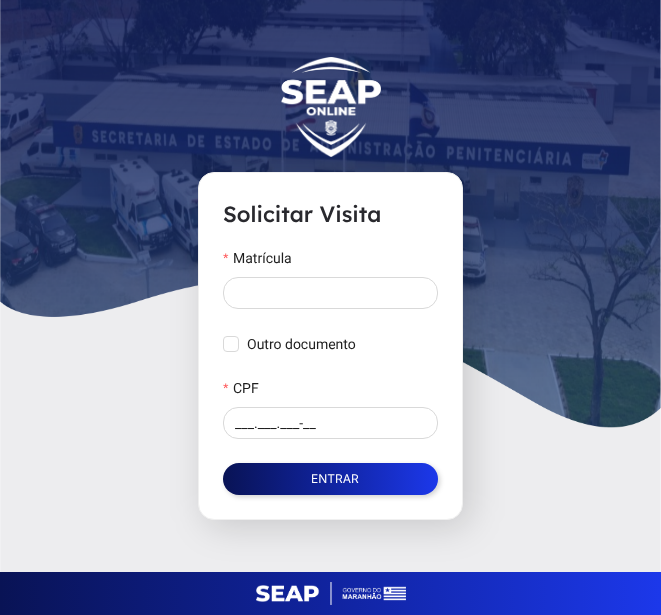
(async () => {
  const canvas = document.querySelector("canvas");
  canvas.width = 661;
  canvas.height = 615;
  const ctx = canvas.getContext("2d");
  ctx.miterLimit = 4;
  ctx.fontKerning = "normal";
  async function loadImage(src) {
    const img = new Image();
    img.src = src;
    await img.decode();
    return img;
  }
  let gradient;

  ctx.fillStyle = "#ffffff";
  ctx.fillRect(0, 0, 661, 615);
  ctx.drawImage(await loadImage("img/1.png"), 0, 0, 661, 572);
  ctx.drawImage(await loadImage("img/2.png"), 281, 57, 100, 100);
  gradient = ctx.createLinearGradient(0, 594, 661, 594);
  gradient.addColorStop(0, "#091355");
  gradient.addColorStop(0.49, "#10239e");
  gradient.addColorStop(1, "#1c38ea");
  ctx.fillStyle = gradient;
  ctx.fillRect(0, 572, 661, 43);
  ctx.fillStyle = "rgba(0, 0, 0, 0.15)";
  ctx.filter = "blur(17.5px)";
  ctx.beginPath();
  ctx.roundRect(205, 179, 265, 348, 16);
  ctx.fill();
  ctx.filter = "none";
  ctx.fillStyle = "#ffffff";
  ctx.beginPath();
  ctx.roundRect(198.5, 172.5, 264, 347, 15.5);
  ctx.fill();
  ctx.strokeStyle = "#f0f0f0";
  ctx.stroke();
  ctx.beginPath();
  ctx.roundRect(223.5, 277.5, 214, 31, 14.5);
  ctx.strokeStyle = "#d9d9d9";
  ctx.stroke();
  ctx.beginPath();
  ctx.roundRect(223.5, 336.5, 15, 15, 3.5);
  ctx.stroke();
  ctx.beginPath();
  ctx.roundRect(223.5, 407.5, 214, 31, 14.5);
  ctx.stroke();
  ctx.fillStyle = "rgba(0, 0, 0, 0.18)";
  ctx.filter = "blur(2.5px)";
  ctx.beginPath();
  ctx.roundRect(225, 465, 215, 32, 16);
  ctx.fill();
  ctx.filter = "none";
  gradient = ctx.createLinearGradient(223, 479, 438, 479);
  gradient.addColorStop(0, "#091355");
  gradient.addColorStop(0.49, "#10239e");
  gradient.addColorStop(1, "#1c38ea");
  ctx.fillStyle = gradient;
  ctx.beginPath();
  ctx.roundRect(223, 463, 215, 32, 16);
  ctx.fill();
  ctx.drawImage(await loadImage("img/3.png"), 256, 582, 150, 23);
  ctx.font = "500 22px Lexend";
  ctx.fillStyle = "#29292e";
  ctx.fillText("Solicitar Visita", 223, 222);
  ctx.font = "14px Liberation Sans";
  ctx.fillStyle = "#ff4d4f";
  ctx.fillText("*", 223, 263);
  ctx.font = "14px Roboto";
  ctx.fillStyle = "#1f1f1f";
  ctx.fillText("Matrícula", 233, 263);
  ctx.fillText("Outro documento", 247, 349);
  ctx.font = "14px Liberation Sans";
  ctx.fillStyle = "#ff4d4f";
  ctx.fillText("*", 223, 393);
  ctx.font = "14px Roboto";
  ctx.fillStyle = "#1f1f1f";
  ctx.fillText("CPF", 233, 393);
  ctx.fillText("___.___.___-__", 235, 428);
  ctx.font = "12px Inter";
  ctx.fillStyle = "#ffffff";
  ctx.fillText("ENTRAR", 311, 483);
})();
